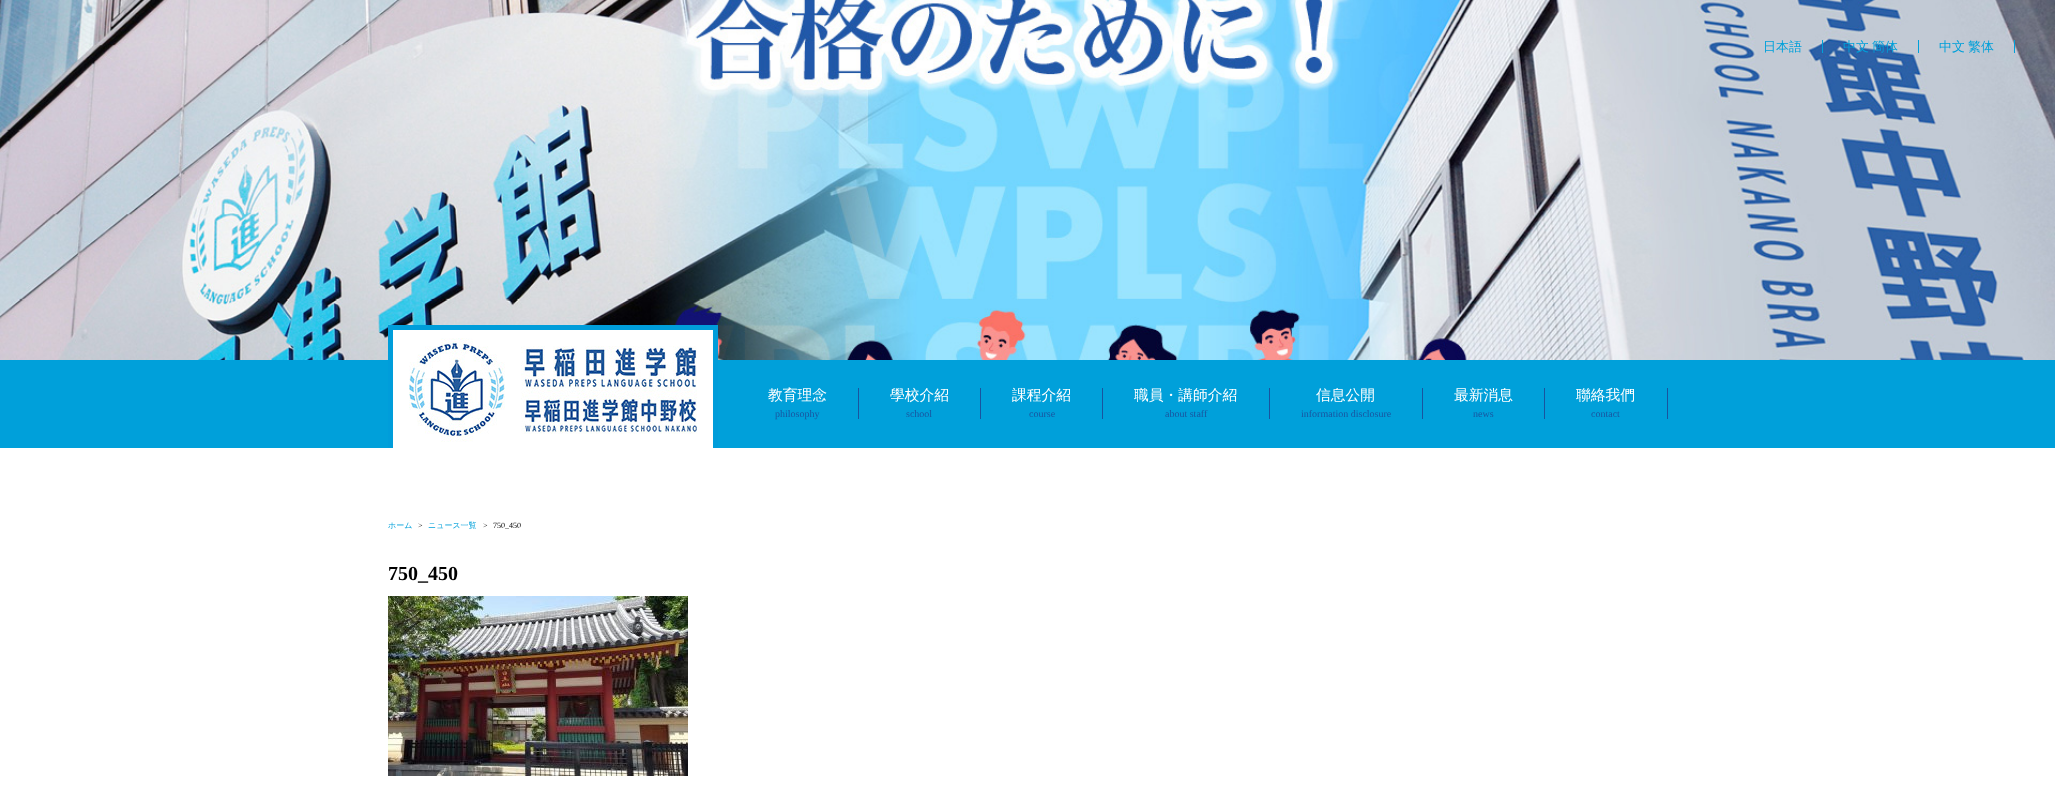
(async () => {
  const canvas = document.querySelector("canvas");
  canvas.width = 2055;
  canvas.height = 791;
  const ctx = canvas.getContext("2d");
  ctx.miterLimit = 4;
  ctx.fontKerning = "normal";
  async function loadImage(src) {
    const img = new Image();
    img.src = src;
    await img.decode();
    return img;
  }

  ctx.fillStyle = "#ffffff";
  ctx.fillRect(0, 0, 2055, 791);
  ctx.drawImage(await loadImage("img/1.png"), 0, 0, 2055, 360);
  for (const [x, y, w, h, color] of [
    [1822, 40, 1, 13, "#00a0da"],
    [1918, 40, 1, 13, "#00a0da"],
    [2014, 40, 1, 13, "#00a0da"],
    [0, 360, 2055, 88, "#00a0da"],
    [388, 325, 330, 5, "#009dda"],
    [713, 325, 5, 123, "#009dda"],
    [388, 325, 5, 123, "#009dda"],
  ]) {
    ctx.fillStyle = color;
    ctx.fillRect(x, y, w, h);
  }
  ctx.drawImage(await loadImage("img/2.png"), 393, 330, 320, 118);
  for (const [x, y, w, h, color] of [
    [858, 388, 1, 31, "#19549f"],
    [980, 388, 1, 31, "#19549f"],
    [1102, 388, 1, 31, "#19549f"],
    [1269, 388, 1, 31, "#19549f"],
    [1422, 388, 1, 31, "#19549f"],
    [1544, 388, 1, 31, "#19549f"],
    [1667, 388, 1, 31, "#19549f"],
  ]) {
    ctx.fillStyle = color;
    ctx.fillRect(x, y, w, h);
  }
  ctx.drawImage(await loadImage("img/3.png"), 388, 596, 300, 180);
  ctx.font = "500 13px WenQuanYi Zen Hei";
  ctx.fillStyle = "#00a0da";
  ctx.fillText("日本語", 1763, 51);
  ctx.wordSpacing = "-1px";
  ctx.fillText("中文 簡体", 1843, 51);
  ctx.fillText("中文 繁体", 1939, 51);
  ctx.wordSpacing = "0px";
  ctx.font = "500 14.75px WenQuanYi Zen Hei";
  ctx.fillStyle = "#ffffff";
  ctx.fillText("教育理念", 768, 400);
  ctx.font = "10px Liberation Serif";
  ctx.fillStyle = "#19549f";
  ctx.fillText("philosophy", 775, 417);
  ctx.font = "500 14.75px WenQuanYi Zen Hei";
  ctx.fillStyle = "#ffffff";
  ctx.fillText("學校介紹", 890, 400);
  ctx.font = "10px Liberation Serif";
  ctx.fillStyle = "#19549f";
  ctx.fillText("school", 906, 417);
  ctx.font = "500 14.75px WenQuanYi Zen Hei";
  ctx.fillStyle = "#ffffff";
  ctx.fillText("課程介紹", 1012, 400);
  ctx.font = "10px Liberation Serif";
  ctx.fillStyle = "#19549f";
  ctx.fillText("course", 1029, 417);
  ctx.font = "500 14.75px WenQuanYi Zen Hei";
  ctx.fillStyle = "#ffffff";
  ctx.fillText("職員・講師介紹", 1134, 400);
  ctx.font = "10px Liberation Serif";
  ctx.fillStyle = "#19549f";
  ctx.fillText("about staff", 1165, 417);
  ctx.font = "500 14.75px WenQuanYi Zen Hei";
  ctx.fillStyle = "#ffffff";
  ctx.fillText("信息公開", 1316, 400);
  ctx.font = "10px Liberation Serif";
  ctx.fillStyle = "#19549f";
  ctx.fillText("information disclosure", 1301, 417);
  ctx.font = "500 14.75px WenQuanYi Zen Hei";
  ctx.fillStyle = "#ffffff";
  ctx.fillText("最新消息", 1454, 400);
  ctx.font = "10px Liberation Serif";
  ctx.fillStyle = "#19549f";
  ctx.fillText("news", 1473, 417);
  ctx.font = "500 14.75px WenQuanYi Zen Hei";
  ctx.fillStyle = "#ffffff";
  ctx.fillText("聯絡我們", 1576, 400);
  ctx.font = "10px Liberation Serif";
  ctx.fillStyle = "#19549f";
  ctx.fillText("contact", 1591, 417);
  ctx.font = "500 8px WenQuanYi Zen Hei";
  ctx.fillStyle = "#00a0da";
  ctx.fillText("ホーム", 388, 528);
  ctx.font = "8px Liberation Serif";
  ctx.fillStyle = "#000000";
  ctx.fillText(">", 418, 528);
  ctx.font = "500 8px WenQuanYi Zen Hei";
  ctx.fillStyle = "#00a0da";
  ctx.fillText("ニュース一覧", 428, 528);
  ctx.font = "8px Liberation Serif";
  ctx.fillStyle = "#000000";
  ctx.fillText(">", 483, 528);
  ctx.fillText("750_450", 493, 528);
  ctx.font = "bold 20px Liberation Serif";
  ctx.fillText("750_450", 388, 580);
})();
